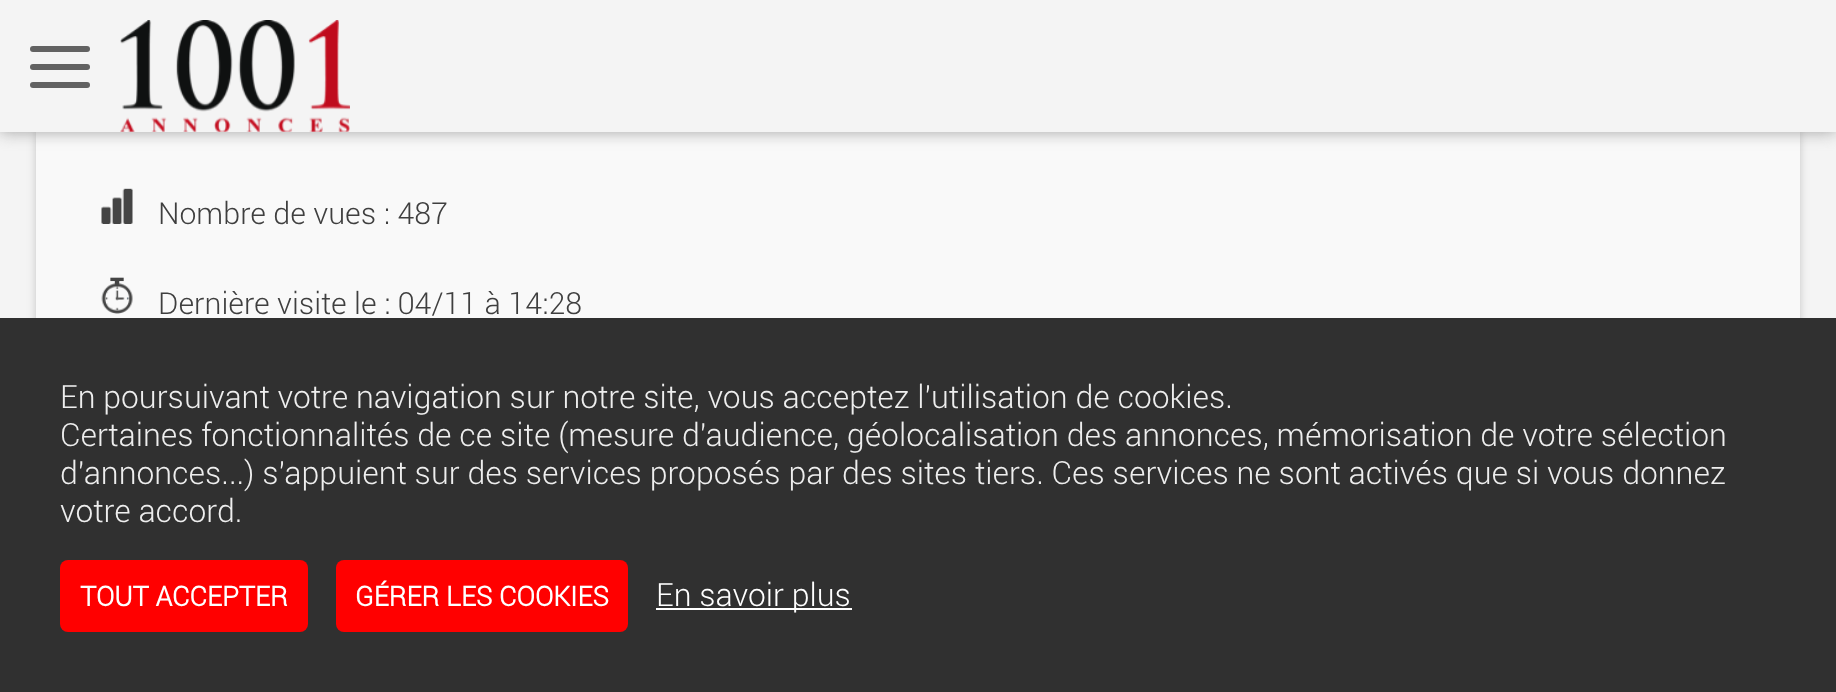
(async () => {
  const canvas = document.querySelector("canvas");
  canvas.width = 1836;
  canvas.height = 692;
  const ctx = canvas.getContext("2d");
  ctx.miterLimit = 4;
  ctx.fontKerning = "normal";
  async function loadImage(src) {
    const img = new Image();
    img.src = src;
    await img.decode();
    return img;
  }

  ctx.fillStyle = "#f4f4f4";
  ctx.fillRect(0, 0, 1836, 692);
  ctx.fillStyle = "#c4c4c4";
  ctx.filter = "blur(4px)";
  ctx.beginPath();
  ctx.roundRect(36, 44, 1764, 436, 20);
  ctx.fill();
  ctx.filter = "none";
  ctx.fillStyle = "#f9f9f9";
  ctx.fillRect(36, 132, 1764, 186);
  ctx.fillStyle = "#a2a2a2";
  ctx.filter = "blur(8px)";
  ctx.beginPath();
  ctx.rect(0, 0, 1836, 132);
  ctx.fill();
  ctx.filter = "none";
  ctx.fillStyle = "#f4f4f4";
  ctx.fillRect(0, 0, 1836, 132);
  ctx.fillStyle = "#626262";
  ctx.beginPath();
  ctx.roundRect(30, 46, 60, 6, 3);
  ctx.fill();
  ctx.beginPath();
  ctx.roundRect(30, 64, 60, 6, 3);
  ctx.fill();
  ctx.beginPath();
  ctx.roundRect(30, 82, 60, 6, 3);
  ctx.fill();
  ctx.drawImage(await loadImage("img/1.png"), 120, 20, 230, 112);
  ctx.drawImage(await loadImage("img/2.png"), 101, 188, 32, 36);
  ctx.drawImage(await loadImage("img/3.png"), 101, 277, 32, 37);
  ctx.fillStyle = "#303030";
  ctx.fillRect(0, 318, 1836, 374);
  ctx.fillStyle = "#ff0000";
  ctx.beginPath();
  ctx.roundRect(60, 560, 248, 72, 8);
  ctx.fill();
  ctx.beginPath();
  ctx.roundRect(336, 560, 292, 72, 8);
  ctx.fill();
  ctx.fillStyle = "#ffffff";
  ctx.fillRect(656, 608, 196, 2);
  ctx.font = "300 30.4px Roboto";
  ctx.fillStyle = "#3f3f3f";
  ctx.fillText("Nombre de vues : 487", 158, 224);
  ctx.fillText("Dernière visite le : 04/11 à 14:28", 158, 314);
  ctx.font = "300 32px Roboto";
  ctx.fillStyle = "#eeeeee";
  for (const [text, x, y] of [
    ["En poursuivant votre navigation sur notre site, vous acceptez l'utilisation de cookies.", 60, 408],
    ["Certaines fonctionnalités de ce site (mesure d'audience, géolocalisation des annonces, mémorisation de votre sélection", 60, 446],
    ["d'annonces...) s'appuient sur des services proposés par des sites tiers. Ces services ne sont activés que si vous donnez", 60, 484],
    ["votre accord.", 60, 522],
  ]) {
    ctx.fillText(text, x, y);
  }
  ctx.font = "bold 27.25px Roboto";
  ctx.fillStyle = "#ffffff";
  ctx.fillText("TOUT ACCEPTER", 80, 606);
  ctx.fillText("GÉRER LES COOKIES", 355, 606);
  ctx.font = "300 32px Roboto";
  ctx.fillText("En savoir plus", 656, 606);
})();
